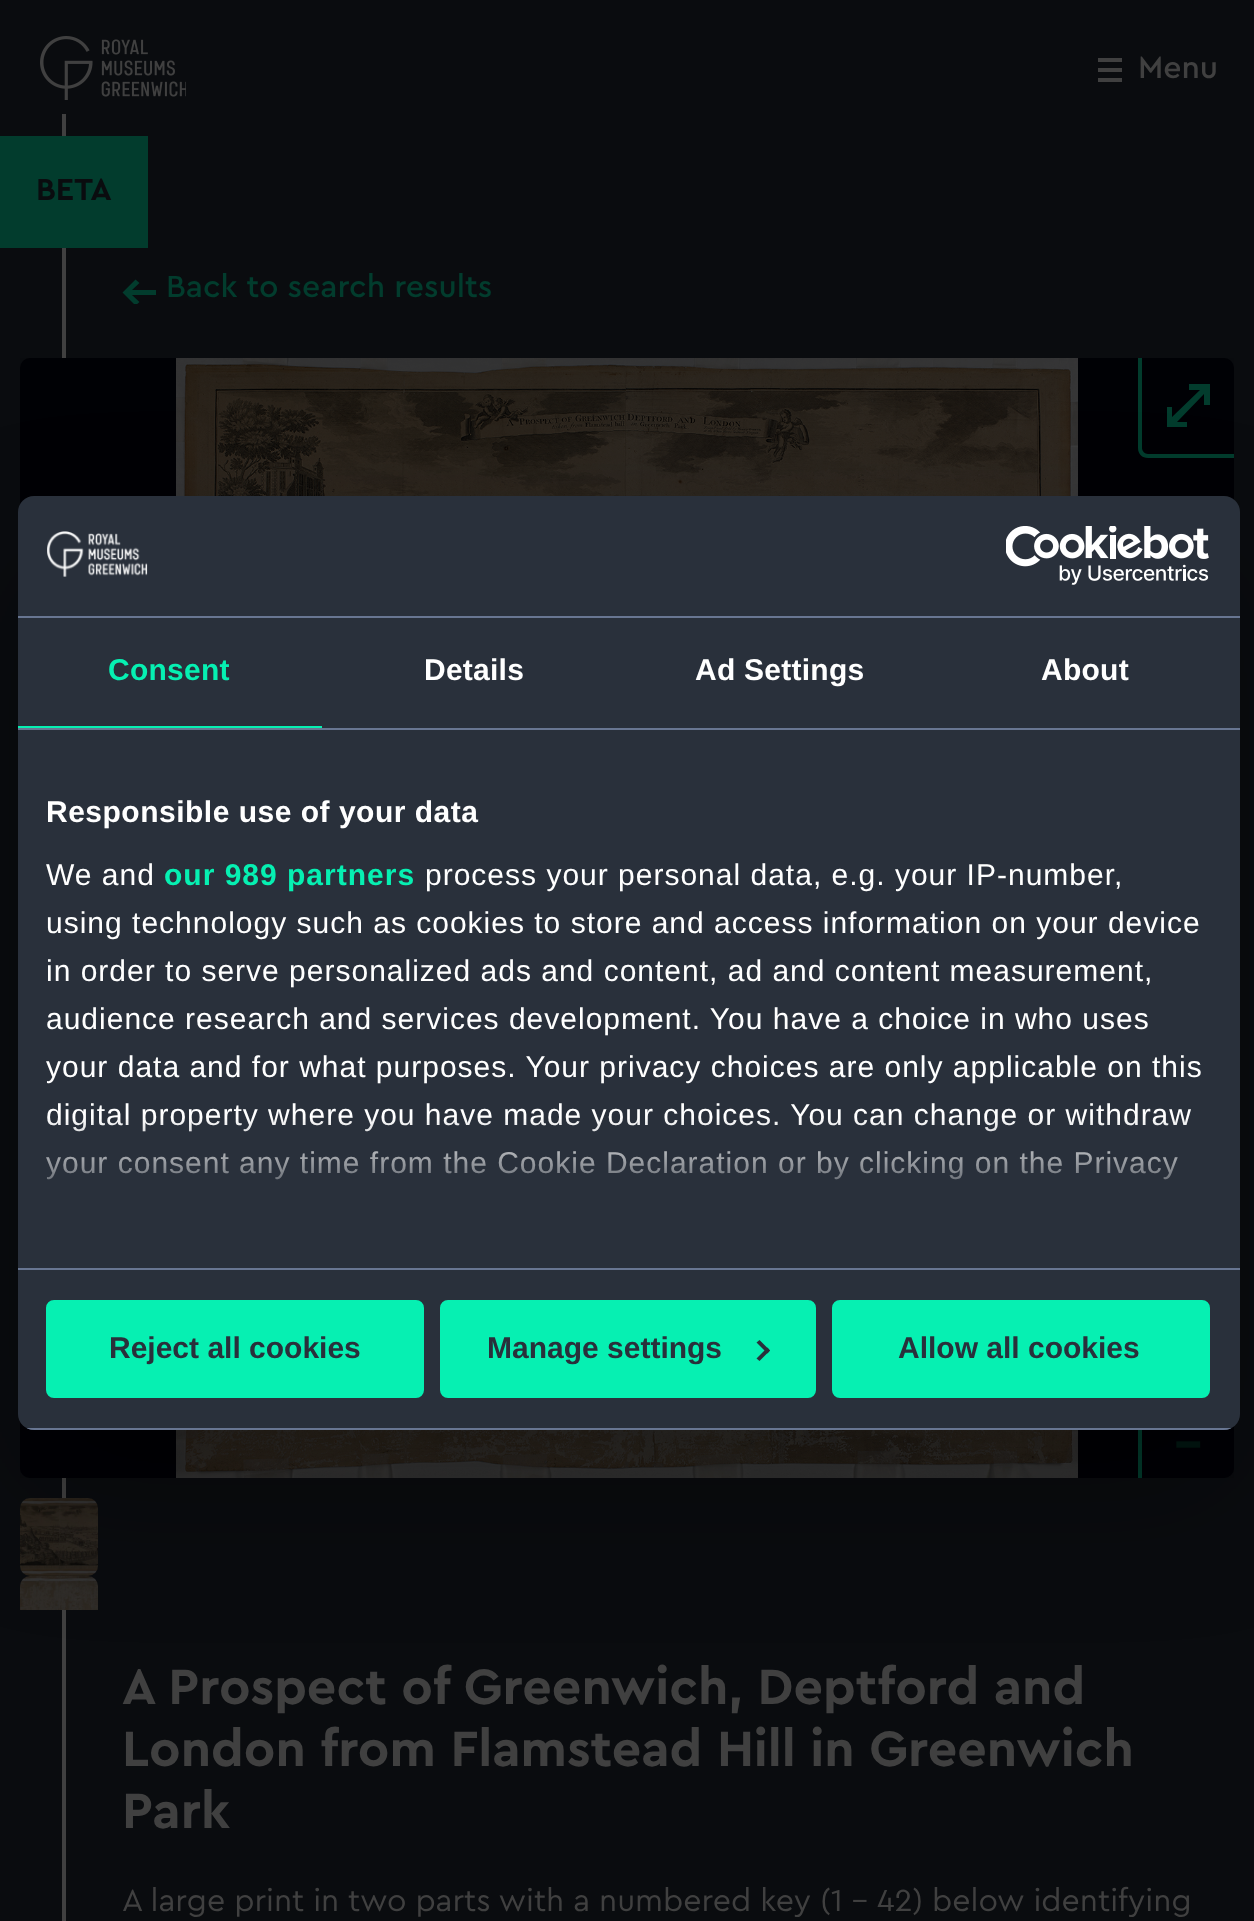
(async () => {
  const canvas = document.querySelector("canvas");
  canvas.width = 1254;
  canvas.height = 1921;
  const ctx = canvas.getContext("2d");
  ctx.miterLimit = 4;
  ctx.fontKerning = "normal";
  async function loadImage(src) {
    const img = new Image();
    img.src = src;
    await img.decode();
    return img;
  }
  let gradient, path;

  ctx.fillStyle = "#0a0c0f";
  ctx.fillRect(0, 0, 1254, 1921);
  ctx.fillStyle = "#404040";
  ctx.fillRect(62, 114, 4, 22);
  ctx.drawImage(await loadImage("img/1.png"), 40, 36, 146, 64);
  for (const [x, y, w, h, color] of [
    [1098, 68, 24, 4, "#404040"],
    [1098, 58, 24, 4, "#404040"],
    [1098, 78, 24, 4, "#404040"],
    [0, 136, 148, 112, "#023c2d"],
    [62, 248, 4, 1673, "#404040"],
  ]) {
    ctx.fillStyle = color;
    ctx.fillRect(x, y, w, h);
  }
  ctx.save();
  ctx.beginPath();
  ctx.rect(122, 278, 34, 26);
  ctx.clip();
  ctx.fillStyle = "#023c2d";
  path = new Path2D("M135.5 305.5L122.5 292.5L135.5 279.5L139.5 283L132 290H156.5V295H132L139.5 302Z");
  ctx.fill(path);
  ctx.restore();
  ctx.save();
  ctx.beginPath();
  ctx.rect(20, 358, 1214, 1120);
  ctx.clip();
  ctx.fillStyle = "rgba(5, 6, 8, 0.4)";
  ctx.filter = "blur(13px)";
  ctx.beginPath();
  ctx.roundRect(20, 368, 1214, 560, 10);
  ctx.fill();
  ctx.filter = "none";
  ctx.restore();
  ctx.fillStyle = "#000105";
  ctx.beginPath();
  ctx.roundRect(20, 358, 1214, 560, 10);
  ctx.fill();
  ctx.drawImage(await loadImage("img/2.png"), 176, 358, 902, 138);
  ctx.drawImage(await loadImage("img/4.png"), 20, 1498, 78, 78);
  ctx.save();
  ctx.beginPath();
  ctx.rect(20, 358, 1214, 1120);
  ctx.clip();
  ctx.fillStyle = "rgba(5, 6, 8, 0.4)";
  ctx.filter = "blur(13px)";
  ctx.beginPath();
  ctx.roundRect(20, 928, 1214, 560, 10);
  ctx.fill();
  ctx.filter = "none";
  ctx.restore();
  ctx.beginPath();
  ctx.roundRect(20, 918, 1214, 560, 10);
  ctx.fill();
  ctx.drawImage(await loadImage("img/3.png"), 176, 1430, 902, 48);
  ctx.fillStyle = "#023c2d";
  path = new Path2D("M1138 358H1224C1230 358 1234 362 1234 368V458H1148C1142 458 1138 454 1138 448ZM1142 358H1224C1230 358 1234 362 1234 368V454H1148C1145 454 1142 451 1142 448Z");
  ctx.fill(path, "evenodd");
  path = new Path2D("M1177 422H1187V427H1167V407H1172V417L1200 390H1189V384H1210V405H1204V394Z");
  ctx.fill(path);
  path = new Path2D("M1148 1318H1234V1468C1234 1474 1230 1478 1224 1478H1138V1328C1138 1322 1142 1318 1148 1318ZM1148 1322H1234V1468C1234 1474 1230 1478 1224 1478H1142V1328C1142 1325 1145 1322 1148 1322Z");
  ctx.fill(path, "evenodd");
  ctx.drawImage(await loadImage("img/5.png"), 20, 1576, 78, 34);
  ctx.fillStyle = "rgba(0, 0, 0, 0.3)";
  ctx.filter = "blur(68px)";
  ctx.beginPath();
  ctx.roundRect(18, 560, 1222, 934, 16);
  ctx.fill();
  ctx.filter = "none";
  ctx.fillStyle = "#29303b";
  ctx.beginPath();
  ctx.roundRect(18, 496, 1222, 934, 16);
  ctx.fill();
  ctx.fillStyle = "#687692";
  ctx.fillRect(18, 616, 1222, 2);
  ctx.drawImage(await loadImage("img/6.png"), 47, 531, 101, 46);
  ctx.drawImage(await loadImage("img/7.png"), 1006, 526, 203, 59);
  for (const [x, y, w, h, color] of [
    [18, 728, 1222, 2, "#687692"],
    [18, 726, 304, 2, "#06f0b2"],
    [18, 1268, 1222, 2, "#687692"],
  ]) {
    ctx.fillStyle = color;
    ctx.fillRect(x, y, w, h);
  }
  ctx.save();
  ctx.beginPath();
  ctx.roundRect(18, 496, 1222, 934, 16);
  ctx.clip();
  ctx.fillRect(18, 1428, 1222, 2);
  ctx.restore();
  ctx.fillStyle = "#06f0b2";
  ctx.beginPath();
  ctx.roundRect(48, 1302, 374, 94, 6);
  ctx.fill();
  ctx.strokeStyle = "#06f0b2";
  ctx.lineWidth = 4;
  ctx.stroke();
  ctx.beginPath();
  ctx.roundRect(442, 1302, 372, 94, 6);
  ctx.fill();
  ctx.stroke();
  ctx.fillStyle = "#29303b";
  path = new Path2D("M759.5 1340L770 1350.5L767.5 1353.5L756.5 1342.5Z");
  ctx.fill(path);
  path = new Path2D("M767.5 1347.5L770 1350.5L759.5 1361L756.5 1358.5Z");
  ctx.fill(path);
  ctx.fillStyle = "#06f0b2";
  ctx.beginPath();
  ctx.roundRect(834, 1302, 374, 94, 6);
  ctx.fill();
  ctx.stroke();
  ctx.font = "500 32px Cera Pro";
  ctx.fillStyle = "#404040";
  ctx.fillText("Menu", 1138, 78);
  ctx.font = "bold 32px Cera Pro";
  ctx.fillStyle = "#0a0c0f";
  ctx.fillText("BETA", 36, 200);
  ctx.font = "500 32px Cera Pro";
  ctx.fillStyle = "#023c2d";
  ctx.fillText("Back to search results", 166, 297);
  ctx.font = "100px Cera Pro";
  ctx.fillStyle = "#01120e";
  ctx.fillText("-", 1171, 1476);
  ctx.font = "bold 52px Cera Pro";
  ctx.fillStyle = "#404040";
  for (const [text, x, y] of [
    ["A Prospect of Greenwich, Deptford and", 122, 1704],
    ["London from Flamstead Hill in Greenwich", 122, 1766],
    ["Park", 122, 1828],
  ]) {
    ctx.fillText(text, x, y);
  }
  ctx.font = "32px Cera Pro";
  ctx.fillText("A large print in two parts with a numbered key (1 - 42) below identifying", 122, 1911);
  ctx.letterSpacing = "0.25px";
  ctx.font = "bold 30px Liberation Sans";
  ctx.fillStyle = "#06f0b2";
  ctx.fillText("Consent", 108, 680);
  ctx.fillStyle = "#ffffff";
  for (const [text, x, y] of [
    ["Details", 424, 680],
    ["Ad Settings", 695, 680],
    ["About", 1041, 680],
  ]) {
    ctx.fillText(text, x, y);
  }
  ctx.letterSpacing = "0.5px";
  ctx.fillText("Responsible use of your data", 46, 822);
  ctx.letterSpacing = "1px";
  ctx.font = "30px Liberation Sans";
  ctx.fillText("We and", 46, 885);
  ctx.font = "bold 30px Liberation Sans";
  ctx.fillStyle = "#06f0b2";
  ctx.fillText("our 989 partners", 164, 885);
  ctx.font = "30px Liberation Sans";
  ctx.fillStyle = "#ffffff";
  for (const [text, x, y] of [
    ["process your personal data, e.g. your IP-number,", 425, 885],
    ["using technology such as cookies to store and access information on your device", 46, 933],
    ["in order to serve personalized ads and content, ad and content measurement,", 46, 981],
    ["audience research and services development. You have a choice in who uses", 46, 1029],
    ["your data and for what purposes. Your privacy choices are only applicable on this", 46, 1077],
    ["digital property where you have made your choices. You can change or withdraw", 46, 1125],
    ["your consent any time from the Cookie Declaration or by clicking on the Privacy", 46, 1173],
  ]) {
    ctx.fillText(text, x, y);
  }
  gradient = ctx.createLinearGradient(615, 1267, 615, 1117);
  gradient.addColorStop(0, "#29303b");
  gradient.addColorStop(0.5, "rgba(41, 48, 59, 0.8)");
  gradient.addColorStop(1, "rgba(41, 48, 59, 0)");
  ctx.fillStyle = gradient;
  ctx.fillRect(46, 1119, 1142, 61);
  ctx.letterSpacing = "0px";
  ctx.font = "bold 30px Liberation Sans";
  ctx.fillStyle = "#29303b";
  for (const [text, x, y] of [
    ["Reject all cookies", 109, 1358],
    ["Manage settings", 487, 1358],
    ["Allow all cookies", 898, 1358],
  ]) {
    ctx.fillText(text, x, y);
  }
})();
